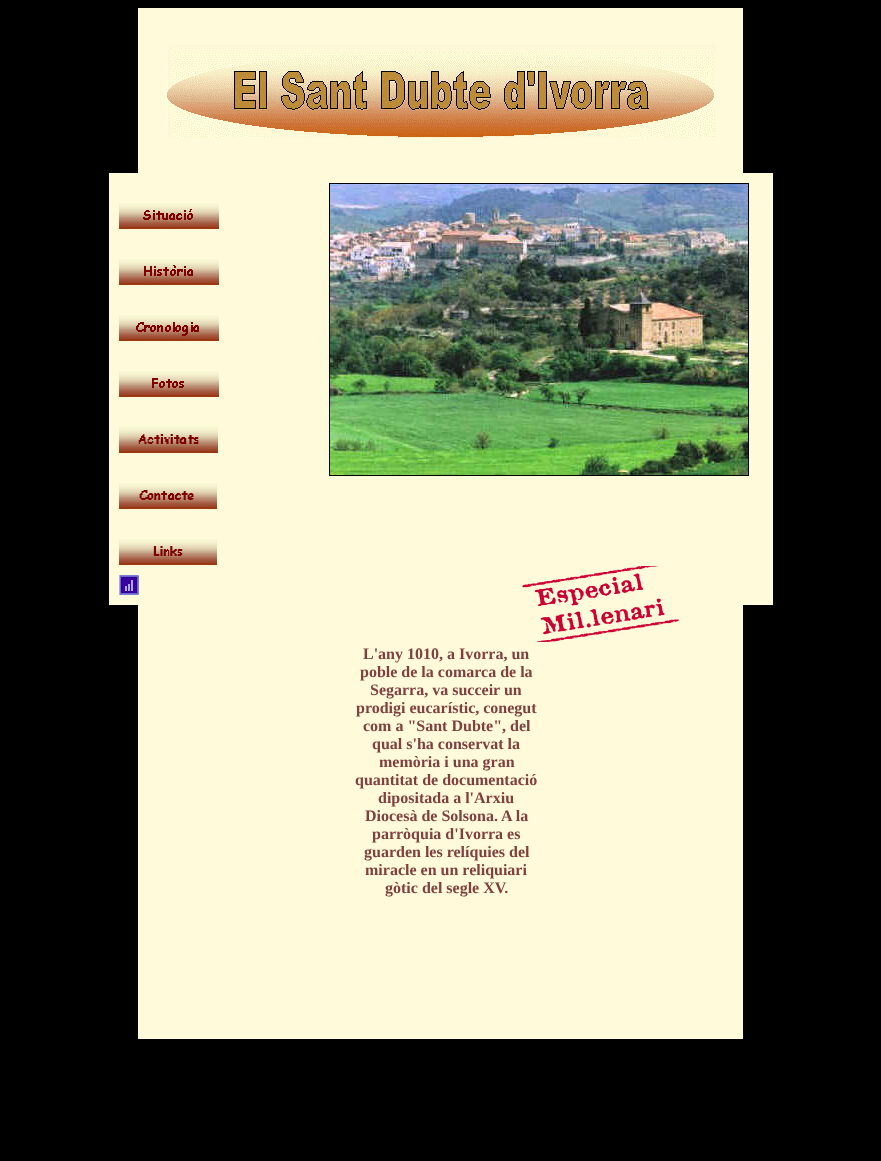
(async () => {
  const canvas = document.querySelector("canvas");
  canvas.width = 881;
  canvas.height = 1161;
  const ctx = canvas.getContext("2d");
  ctx.miterLimit = 4;
  ctx.fontKerning = "normal";
  async function loadImage(src) {
    const img = new Image();
    img.src = src;
    await img.decode();
    return img;
  }

  ctx.fillStyle = "#000000";
  ctx.fillRect(0, 0, 881, 1161);
  ctx.fillStyle = "#fffbda";
  ctx.fillRect(138, 8, 605, 165);
  ctx.drawImage(await loadImage("img/1.png"), 167, 42, 548, 96);
  ctx.fillRect(109, 173, 664, 432);
  ctx.drawImage(await loadImage("img/2.png"), 119, 203, 100, 26);
  ctx.strokeStyle = "#000000";
  ctx.strokeRect(329.5, 183.5, 419, 292);
  ctx.drawImage(await loadImage("img/3.png"), 330, 184, 418, 291);
  ctx.drawImage(await loadImage("img/4.png"), 119, 259, 100, 26);
  ctx.drawImage(await loadImage("img/5.png"), 119, 315, 100, 26);
  ctx.drawImage(await loadImage("img/6.png"), 119, 371, 100, 26);
  ctx.drawImage(await loadImage("img/7.png"), 119, 425, 99, 28);
  ctx.drawImage(await loadImage("img/8.png"), 119, 483, 98, 26);
  ctx.drawImage(await loadImage("img/9.png"), 119, 539, 98, 26);
  ctx.drawImage(await loadImage("img/10.png"), 119, 575, 20, 20);
  ctx.fillRect(138, 605, 605, 434);
  ctx.drawImage(await loadImage("img/11.png"), 522, 566, 157, 76);
  ctx.font = "bold 16px Liberation Serif";
  ctx.fillStyle = "#804040";
  for (const [text, x, y] of [
    ["L'any 1010, a Ivorra, un", 363, 659],
    ["poble de la comarca de la", 360, 677],
    ["Segarra, va succeir un", 370, 695],
    ["prodigi eucarístic, conegut", 356, 713],
    ["com a \"Sant Dubte\", del", 363, 731],
    ["qual s'ha conservat la", 372, 749],
    ["memòria i una gran", 379, 767],
    ["quantitat de documentació", 355, 785],
    ["dipositada a l'Arxiu", 378, 803],
    ["Diocesà de Solsona. A la", 365, 821],
    ["parròquia d'Ivorra es", 372, 839],
    ["guarden les relíquies del", 364, 857],
    ["miracle en un reliquiari", 365, 875],
    ["gòtic del segle XV.", 385, 893],
  ]) {
    ctx.fillText(text, x, y);
  }
})();
